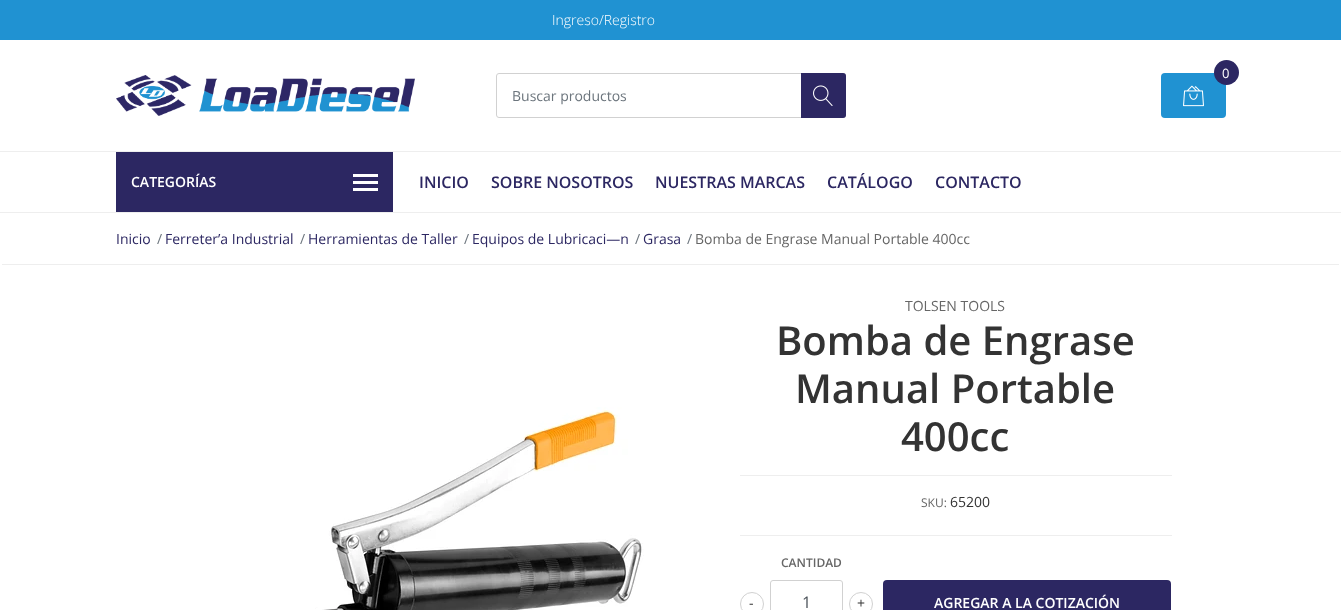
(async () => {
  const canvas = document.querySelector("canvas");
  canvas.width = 1341;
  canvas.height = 610;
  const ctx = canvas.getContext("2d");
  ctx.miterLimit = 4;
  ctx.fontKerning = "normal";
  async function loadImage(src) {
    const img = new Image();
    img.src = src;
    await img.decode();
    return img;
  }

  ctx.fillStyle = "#ffffff";
  ctx.fillRect(0, 0, 1341, 610);
  ctx.fillStyle = "#2092d2";
  ctx.fillRect(0, 0, 1341, 40);
  ctx.beginPath();
  ctx.roundRect(1161, 73, 65, 45, 4);
  ctx.fill();
  ctx.fillStyle = "#2c2762";
  ctx.beginPath();
  ctx.arc(1226.5, 72.5, 12.5, 0, Math.PI * 2);
  ctx.fill();
  ctx.drawImage(await loadImage("img/1.png"), 1183, 85, 21, 22);
  ctx.drawImage(await loadImage("img/2.png"), 116, 75, 299, 41);
  ctx.beginPath();
  ctx.roundRect(496.5, 73.5, 349, 44, 2.5);
  ctx.strokeStyle = "#d1d1d1";
  ctx.stroke();
  ctx.beginPath();
  ctx.roundRect(801, 73, 45, 45, [0, 3, 3, 0]);
  ctx.fill();
  ctx.drawImage(await loadImage("img/3.png"), 813, 85, 20, 21);
  for (const [x, y, w, h, color] of [
    [0, 151, 1341, 1, "#eeeeee"],
    [0, 212, 1341, 1, "#eeeeee"],
    [116, 152, 277, 60, "#2c2762"],
    [353, 174, 25, 3, "#ffffff"],
    [353, 181, 25, 3, "#ffffff"],
    [353, 188, 25, 3, "#ffffff"],
    [2, 264, 1337, 1, "#eeeeee"],
  ]) {
    ctx.fillStyle = color;
    ctx.fillRect(x, y, w, h);
  }
  ctx.drawImage(await loadImage("img/4.png"), 315, 407, 329, 203);
  ctx.fillRect(740, 475, 432, 1);
  ctx.fillRect(740, 535, 432, 1);
  ctx.beginPath();
  ctx.roundRect(770.5, 580.5, 72, 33, 2.5);
  ctx.stroke();
  ctx.beginPath();
  ctx.arc(752, 604, 11.5, 0, Math.PI * 2);
  ctx.stroke();
  ctx.beginPath();
  ctx.arc(861, 604, 11.5, 0, Math.PI * 2);
  ctx.stroke();
  ctx.fillStyle = "#2c2762";
  ctx.beginPath();
  ctx.roundRect(883, 580, 288, 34, 4);
  ctx.fill();
  ctx.font = "300 14px Open Sans";
  ctx.fillStyle = "#ffffff";
  ctx.fillText("Ingreso/Registro", 552, 25);
  ctx.font = "13px Open Sans";
  ctx.fillText("0", 1222, 78);
  ctx.font = "14px Open Sans";
  ctx.fillStyle = "#6c757d";
  ctx.fillText("Buscar productos", 512, 101);
  ctx.font = "600 14px Open Sans";
  ctx.fillStyle = "#ffffff";
  ctx.fillText("CATEGORÍAS", 131, 187);
  ctx.font = "600 16px Open Sans";
  ctx.fillStyle = "#2c2762";
  for (const [text, x, y] of [
    ["INICIO", 419, 188],
    ["SOBRE NOSOTROS", 491, 188],
    ["NUESTRAS MARCAS", 655, 188],
    ["CATÁLOGO", 827, 188],
    ["CONTACTO", 935, 188],
  ]) {
    ctx.fillText(text, x, y);
  }
  ctx.font = "14px Open Sans";
  ctx.fillText("Inicio", 116, 244);
  ctx.fillStyle = "#6c757d";
  ctx.fillText("/", 157, 244);
  ctx.fillStyle = "#2c2762";
  ctx.fillText("Ferreter’a Industrial", 165, 244);
  ctx.fillStyle = "#6c757d";
  ctx.fillText("/", 300, 244);
  ctx.fillStyle = "#2c2762";
  ctx.fillText("Herramientas de Taller", 308, 244);
  ctx.fillStyle = "#6c757d";
  ctx.fillText("/", 464, 244);
  ctx.fillStyle = "#2c2762";
  ctx.fillText("Equipos de Lubricaci—n", 472, 244);
  ctx.fillStyle = "#6c757d";
  ctx.fillText("/", 635, 244);
  ctx.fillStyle = "#2c2762";
  ctx.fillText("Grasa", 643, 244);
  ctx.fillStyle = "#6c757d";
  ctx.fillText("/", 687, 244);
  ctx.fillStyle = "#666666";
  ctx.fillText("Bomba de Engrase Manual Portable 400cc", 695, 244);
  ctx.fillText("TOLSEN TOOLS", 905, 311);
  ctx.font = "600 40px Open Sans";
  ctx.fillStyle = "#333333";
  for (const [text, x, y] of [
    ["Bomba de Engrase", 776, 355],
    ["Manual Portable", 795, 403],
    ["400cc", 901, 451],
  ]) {
    ctx.fillText(text, x, y);
  }
  ctx.font = "12px Open Sans";
  ctx.fillStyle = "#666666";
  ctx.fillText("SKU:", 921, 507);
  ctx.font = "14px Open Sans";
  ctx.fillStyle = "#333333";
  ctx.fillText("65200", 950, 507);
  ctx.font = "600 12px Open Sans";
  ctx.fillStyle = "#666666";
  ctx.fillText("CANTIDAD", 781, 567);
  ctx.font = "16px Open Sans";
  ctx.fillStyle = "#495057";
  ctx.fillText("1", 802, 608);
  ctx.font = "14px Open Sans";
  ctx.fillStyle = "#333333";
  ctx.fillText("-", 749, 608);
  ctx.fillText("+", 857, 608);
  ctx.font = "600 14px Open Sans";
  ctx.fillStyle = "#ffffff";
  ctx.fillText("AGREGAR A LA COTIZACIÓN", 934, 608);
})();
